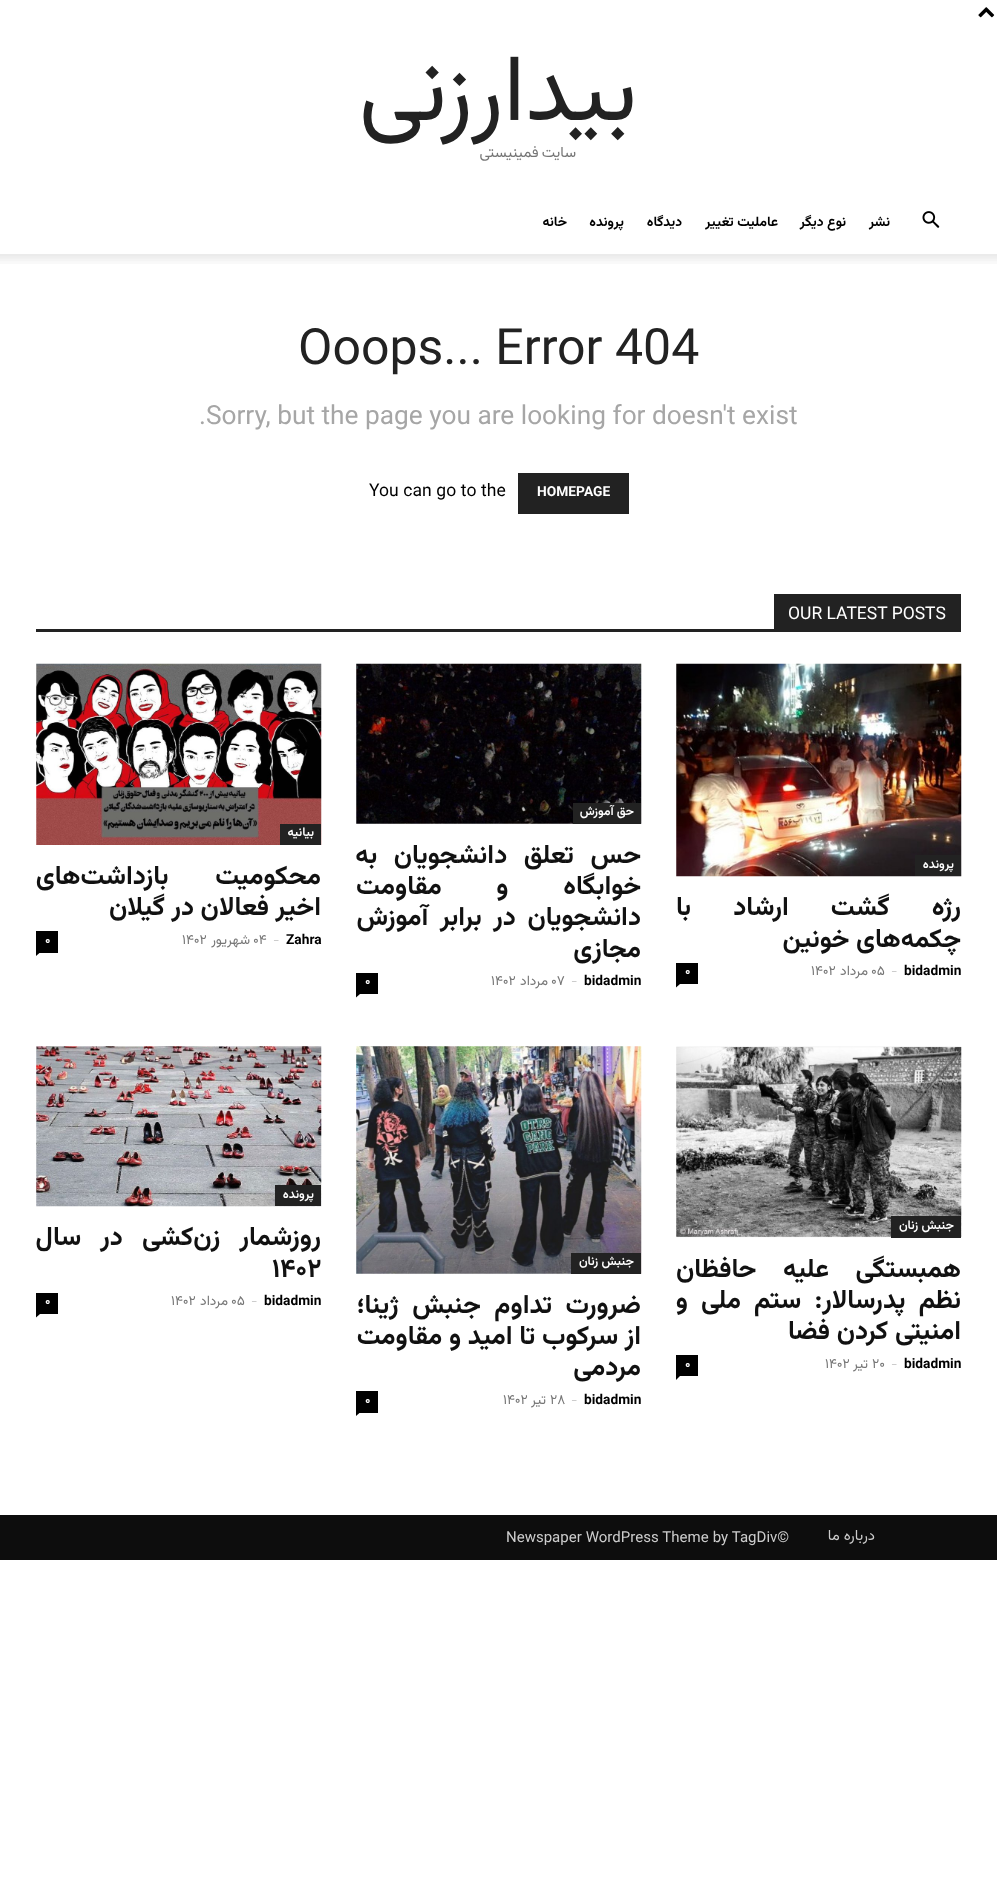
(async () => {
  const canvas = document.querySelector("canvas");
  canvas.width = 997;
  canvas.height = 1900;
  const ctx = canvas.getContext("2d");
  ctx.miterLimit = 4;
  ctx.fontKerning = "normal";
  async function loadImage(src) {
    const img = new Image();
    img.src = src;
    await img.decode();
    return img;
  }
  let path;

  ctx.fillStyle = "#ffffff";
  ctx.fillRect(0, 0, 997, 1900);
  ctx.drawImage(await loadImage("img/1.png"), 978, 7, 17, 11);
  ctx.drawImage(await loadImage("img/2.png"), 922, 211, 18, 17);
  ctx.drawImage(await loadImage("img/3.png"), 0, 254, 997, 10);
  for (const [x, y, w, h, color] of [
    [518, 473, 111, 41, "#222222"],
    [36, 629, 925, 3, "#222222"],
    [774, 594, 187, 35, "#222222"],
  ]) {
    ctx.fillStyle = color;
    ctx.fillRect(x, y, w, h);
  }
  ctx.drawImage(await loadImage("img/4.png"), 676, 663, 286, 214);
  ctx.fillRect(915, 855, 46, 21);
  ctx.fillStyle = "#000000";
  ctx.fillRect(676, 963, 22, 21);
  path = new Path2D("M676 984H680L676 987.5Z");
  ctx.fill(path);
  ctx.drawImage(await loadImage("img/5.png"), 356, 663, 286, 161);
  ctx.fillStyle = "#222222";
  ctx.fillRect(573, 803, 68, 21);
  ctx.fillStyle = "#000000";
  ctx.fillRect(356, 973, 22, 21);
  path = new Path2D("M356 994H360L356 997.5Z");
  ctx.fill(path);
  ctx.drawImage(await loadImage("img/6.png"), 36, 663, 286, 182);
  ctx.fillStyle = "#222222";
  ctx.fillRect(280, 824, 41, 21);
  ctx.fillStyle = "#000000";
  ctx.fillRect(36, 931, 22, 22);
  path = new Path2D("M36 952.5H40L36 956Z");
  ctx.fill(path);
  ctx.drawImage(await loadImage("img/7.png"), 676, 1046, 286, 192);
  ctx.fillStyle = "#222222";
  ctx.fillRect(891, 1216, 70, 22);
  ctx.fillStyle = "#000000";
  ctx.fillRect(676, 1355, 22, 21);
  path = new Path2D("M676 1376H680L676 1380Z");
  ctx.fill(path);
  ctx.drawImage(await loadImage("img/8.png"), 356, 1046, 286, 228);
  ctx.fillStyle = "#222222";
  ctx.fillRect(571, 1253, 70, 21);
  ctx.fillStyle = "#000000";
  ctx.fillRect(356, 1391, 22, 22);
  path = new Path2D("M356 1412.5H360L356 1416Z");
  ctx.fill(path);
  ctx.drawImage(await loadImage("img/9.png"), 36, 1046, 286, 161);
  ctx.fillStyle = "#222222";
  ctx.fillRect(275, 1185, 46, 21);
  ctx.fillStyle = "#000000";
  ctx.fillRect(36, 1293, 22, 21);
  path = new Path2D("M36 1314H40L36 1317.5Z");
  ctx.fill(path);
  ctx.fillStyle = "#0d0d0d";
  ctx.fillRect(0, 1515, 997, 45);
  ctx.direction = "rtl";
  ctx.font = "94px Vazirmatn";
  ctx.fillStyle = "#222222";
  ctx.fillText("بیدارزنی", 637, 120);
  ctx.letterSpacing = "2.25px";
  ctx.wordSpacing = "-1px";
  ctx.font = "15px Vazirmatn";
  ctx.fillStyle = "#767676";
  ctx.fillText("سایت فمینیستی", 576, 157);
  ctx.letterSpacing = "0px";
  ctx.wordSpacing = "0px";
  ctx.font = "bold 13.75px Vazirmatn";
  ctx.fillStyle = "#000000";
  for (const [text, x, y] of [
    ["نشر", 890, 226],
    ["نوع دیگر", 846, 226],
    ["عاملیت تغییر", 778, 226],
    ["دیدگاه", 682, 226],
    ["پرونده", 624, 226],
    ["خانه", 567, 226],
  ]) {
    ctx.fillText(text, x, y);
  }
  ctx.direction = "ltr";
  ctx.font = "50px Roboto";
  ctx.fillStyle = "#222222";
  ctx.fillText("Ooops... Error 404", 298, 364);
  ctx.font = "26.25px Roboto";
  ctx.fillStyle = "#a6a6a6";
  ctx.fillText(".Sorry, but the page you are looking for doesn't exist", 199, 424);
  ctx.font = "bold 13.75px Vazirmatn";
  ctx.fillStyle = "#ffffff";
  ctx.fillText("HOMEPAGE", 537, 496);
  ctx.font = "17.5px Vazirmatn";
  ctx.fillStyle = "#000000";
  ctx.fillText("You can go to the", 369, 496);
  ctx.font = "17.5px Roboto";
  ctx.fillStyle = "#ffffff";
  ctx.fillText("OUR LATEST POSTS", 788, 619);
  ctx.direction = "rtl";
  ctx.font = "600 12.5px Vazirmatn";
  ctx.fillText("پرونده", 954, 868);
  ctx.wordSpacing = "35.5px";
  ctx.font = "bold 26.25px Vazirmatn";
  ctx.fillStyle = "#111111";
  ctx.fillText("رژه گشت ارشاد با", 961, 915);
  ctx.wordSpacing = "0px";
  ctx.fillText("چکمه‌های خونین", 961, 947);
  ctx.direction = "ltr";
  ctx.font = "bold 13.75px Vazirmatn";
  ctx.fillStyle = "#000000";
  ctx.fillText("bidadmin", 904, 975);
  ctx.font = "13.75px Vazirmatn";
  ctx.fillStyle = "#cccccc";
  ctx.fillText("-", 891, 975);
  ctx.fillStyle = "#767676";
  ctx.fillText("۰۵", 871, 975);
  ctx.direction = "rtl";
  ctx.fillText("مرداد", 868, 975);
  ctx.direction = "ltr";
  ctx.fillText("۱۴۰۲", 811, 975);
  ctx.font = "600 12.5px Vazirmatn";
  ctx.fillStyle = "#ffffff";
  ctx.fillText("۰", 685, 975);
  ctx.direction = "rtl";
  ctx.fillText("حق آموزش", 634, 815);
  ctx.wordSpacing = "10px";
  ctx.font = "bold 26.25px Vazirmatn";
  ctx.fillStyle = "#111111";
  ctx.fillText("حس تعلق دانشجویان به", 641, 863);
  ctx.wordSpacing = "48px";
  ctx.fillText("خوابگاه و مقاومت", 641, 894);
  ctx.wordSpacing = "5px";
  ctx.fillText("دانشجویان در برابر آموزش", 641, 925);
  ctx.wordSpacing = "0px";
  ctx.fillText("مجازی", 641, 957);
  ctx.direction = "ltr";
  ctx.font = "bold 13.75px Vazirmatn";
  ctx.fillStyle = "#000000";
  ctx.fillText("bidadmin", 584, 985);
  ctx.font = "13.75px Vazirmatn";
  ctx.fillStyle = "#cccccc";
  ctx.fillText("-", 571, 985);
  ctx.fillStyle = "#767676";
  ctx.fillText("۰۷", 551, 985);
  ctx.direction = "rtl";
  ctx.fillText("مرداد", 548, 985);
  ctx.direction = "ltr";
  ctx.fillText("۱۴۰۲", 491, 985);
  ctx.font = "600 12.5px Vazirmatn";
  ctx.fillStyle = "#ffffff";
  ctx.fillText("۰", 365, 985);
  ctx.direction = "rtl";
  ctx.fillText("بیانیه‌", 314, 836);
  ctx.wordSpacing = "40px";
  ctx.font = "bold 26.25px Vazirmatn";
  ctx.fillStyle = "#111111";
  ctx.fillText("محکومیت بازداشت‌های", 321, 884);
  ctx.wordSpacing = "0px";
  ctx.fillText("اخیر فعالان در گیلان", 321, 915);
  ctx.direction = "ltr";
  ctx.font = "bold 13.75px Vazirmatn";
  ctx.fillStyle = "#000000";
  ctx.fillText("Zahra", 286, 944);
  ctx.font = "13.75px Vazirmatn";
  ctx.fillStyle = "#cccccc";
  ctx.fillText("-", 273, 944);
  ctx.fillStyle = "#767676";
  ctx.fillText("۰۴", 253, 944);
  ctx.direction = "rtl";
  ctx.fillText("شهریور", 250, 944);
  ctx.direction = "ltr";
  ctx.fillText("۱۴۰۲", 182, 944);
  ctx.font = "600 12.5px Vazirmatn";
  ctx.fillStyle = "#ffffff";
  ctx.fillText("۰", 45, 944);
  ctx.direction = "rtl";
  ctx.fillText("جنبش زنان", 954, 1229);
  ctx.wordSpacing = "20px";
  ctx.font = "bold 26.25px Vazirmatn";
  ctx.fillStyle = "#111111";
  ctx.fillText("همبستگی علیه حافظان", 961, 1277);
  ctx.wordSpacing = "6.5px";
  ctx.fillText("نظم پدرسالار: ستم ملی و", 961, 1308);
  ctx.wordSpacing = "0px";
  ctx.fillText("امنیتی کردن فضا", 961, 1339);
  ctx.direction = "ltr";
  ctx.font = "bold 13.75px Vazirmatn";
  ctx.fillStyle = "#000000";
  ctx.fillText("bidadmin", 904, 1368);
  ctx.font = "13.75px Vazirmatn";
  ctx.fillStyle = "#cccccc";
  ctx.fillText("-", 891, 1368);
  ctx.fillStyle = "#767676";
  ctx.fillText("۲۰", 872, 1368);
  ctx.direction = "rtl";
  ctx.fillText("تیر", 868, 1368);
  ctx.direction = "ltr";
  ctx.fillText("۱۴۰۲", 825, 1368);
  ctx.font = "600 12.5px Vazirmatn";
  ctx.fillStyle = "#ffffff";
  ctx.fillText("۰", 685, 1368);
  ctx.direction = "rtl";
  ctx.fillText("جنبش زنان", 634, 1265);
  ctx.wordSpacing = "7px";
  ctx.font = "bold 26.25px Vazirmatn";
  ctx.fillStyle = "#111111";
  ctx.fillText("ضرورت تداوم جنبش ژینا؛", 641, 1313);
  ctx.wordSpacing = "0px";
  ctx.fillText("از سرکوب تا امید و مقاومت", 641, 1344);
  ctx.fillText("مردمی", 641, 1375);
  ctx.direction = "ltr";
  ctx.font = "bold 13.75px Vazirmatn";
  ctx.fillStyle = "#000000";
  ctx.fillText("bidadmin", 584, 1404);
  ctx.font = "13.75px Vazirmatn";
  ctx.fillStyle = "#cccccc";
  ctx.fillText("-", 571, 1404);
  ctx.fillStyle = "#767676";
  ctx.fillText("۲۸", 550, 1404);
  ctx.direction = "rtl";
  ctx.fillText("تیر", 546, 1404);
  ctx.direction = "ltr";
  ctx.fillText("۱۴۰۲", 503, 1404);
  ctx.font = "600 12.5px Vazirmatn";
  ctx.fillStyle = "#ffffff";
  ctx.fillText("۰", 365, 1404);
  ctx.direction = "rtl";
  ctx.fillText("پرونده", 314, 1198);
  ctx.wordSpacing = "12.5px";
  ctx.font = "bold 26.25px Vazirmatn";
  ctx.fillStyle = "#111111";
  ctx.fillText("روزشمار زن‌کشی در سال", 321, 1245);
  ctx.wordSpacing = "0px";
  ctx.direction = "ltr";
  ctx.fillText("۱۴۰۲", 272, 1277);
  ctx.font = "bold 13.75px Vazirmatn";
  ctx.fillStyle = "#000000";
  ctx.fillText("bidadmin", 264, 1305);
  ctx.font = "13.75px Vazirmatn";
  ctx.fillStyle = "#cccccc";
  ctx.fillText("-", 251, 1305);
  ctx.fillStyle = "#767676";
  ctx.fillText("۰۵", 231, 1305);
  ctx.direction = "rtl";
  ctx.fillText("مرداد", 228, 1305);
  ctx.direction = "ltr";
  ctx.fillText("۱۴۰۲", 171, 1305);
  ctx.font = "600 12.5px Vazirmatn";
  ctx.fillStyle = "#ffffff";
  ctx.fillText("۰", 45, 1305);
  ctx.direction = "rtl";
  ctx.font = "15px Vazirmatn";
  ctx.fillStyle = "#cccccc";
  ctx.fillText("درباره ما", 875, 1540);
  ctx.direction = "ltr";
  ctx.fillText("Newspaper WordPress Theme by TagDiv©", 506, 1542);
})();
